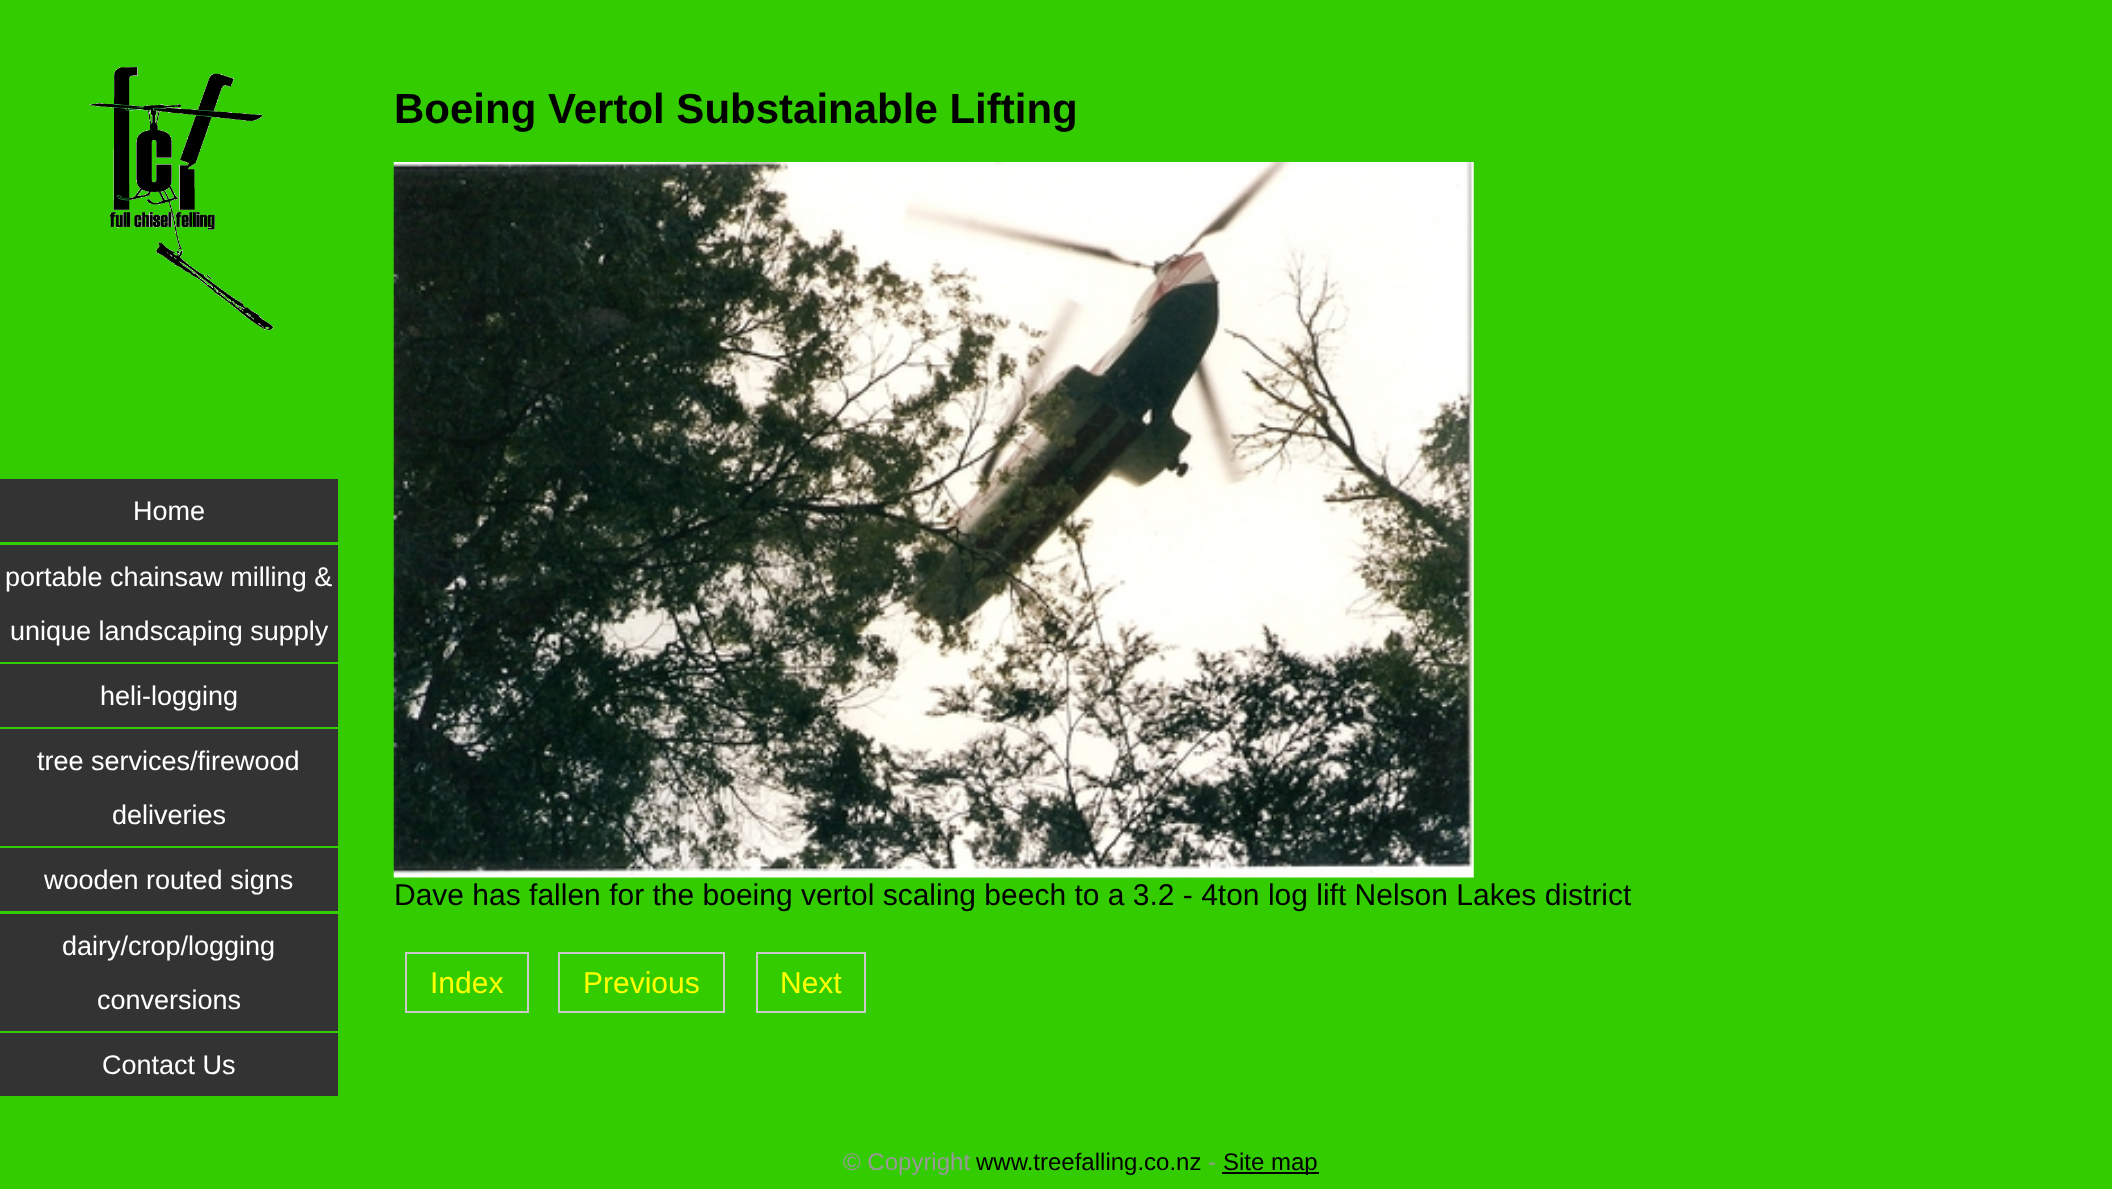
(async () => {
  const canvas = document.querySelector("canvas");
  canvas.width = 2112;
  canvas.height = 1189;
  const ctx = canvas.getContext("2d");
  ctx.miterLimit = 4;
  ctx.fontKerning = "normal";
  async function loadImage(src) {
    const img = new Image();
    img.src = src;
    await img.decode();
    return img;
  }

  ctx.fillStyle = "#33cc00";
  ctx.fillRect(0, 0, 2112, 1189);
  ctx.drawImage(await loadImage("img/1.png"), 89, 67, 185, 264);
  for (const [x, y, w, h, color] of [
    [0, 479, 338, 63, "#333333"],
    [0, 545, 338, 117, "#333333"],
    [0, 664, 338, 63, "#333333"],
    [0, 729, 338, 117, "#333333"],
    [0, 848, 338, 63, "#333333"],
    [0, 914, 338, 117, "#333333"],
    [0, 1033, 338, 63, "#333333"],
  ]) {
    ctx.fillStyle = color;
    ctx.fillRect(x, y, w, h);
  }
  ctx.drawImage(await loadImage("img/2.png"), 393, 162, 1081, 716);
  ctx.strokeStyle = "#cacaca";
  ctx.lineWidth = 2;
  ctx.strokeRect(406, 953, 122, 59);
  ctx.strokeRect(559, 953, 165, 59);
  ctx.strokeRect(757, 953, 108, 59);
  ctx.fillStyle = "#000000";
  ctx.fillRect(1222, 1172, 97, 2);
  ctx.font = "27px Liberation Sans";
  ctx.fillStyle = "#ffffff";
  for (const [text, x, y] of [
    ["Home", 133, 520],
    ["portable chainsaw milling &", 5, 586],
    ["unique landscaping supply", 10, 640],
    ["heli-logging", 100, 705],
    ["tree services/firewood", 37, 770],
    ["deliveries", 112, 824],
    ["wooden routed signs", 44, 889],
    ["dairy/crop/logging", 62, 955],
    ["conversions", 97, 1009],
    ["Contact Us", 102, 1074],
  ]) {
    ctx.fillText(text, x, y);
  }
  ctx.font = "bold 42px Liberation Sans";
  ctx.fillStyle = "#000000";
  ctx.fillText("Boeing Vertol Substainable Lifting", 394, 123);
  ctx.font = "30px Liberation Sans";
  ctx.fillText("Dave has fallen for the boeing vertol scaling beech to a 3.2 - 4ton log lift Nelson Lakes district", 394, 905);
  ctx.fillStyle = "#ffff00";
  for (const [text, x, y] of [
    ["Index", 430, 993],
    ["Previous", 583, 993],
    ["Next", 780, 993],
  ]) {
    ctx.fillText(text, x, y);
  }
  ctx.font = "24px Liberation Sans";
  ctx.fillStyle = "#999999";
  ctx.fillText("© Copyright", 843, 1170);
  ctx.fillStyle = "#000000";
  ctx.fillText("www.treefalling.co.nz", 976, 1170);
  ctx.fillStyle = "#999999";
  ctx.fillText("-", 1208, 1170);
  ctx.fillStyle = "#000000";
  ctx.fillText("Site map", 1223, 1170);
})();
